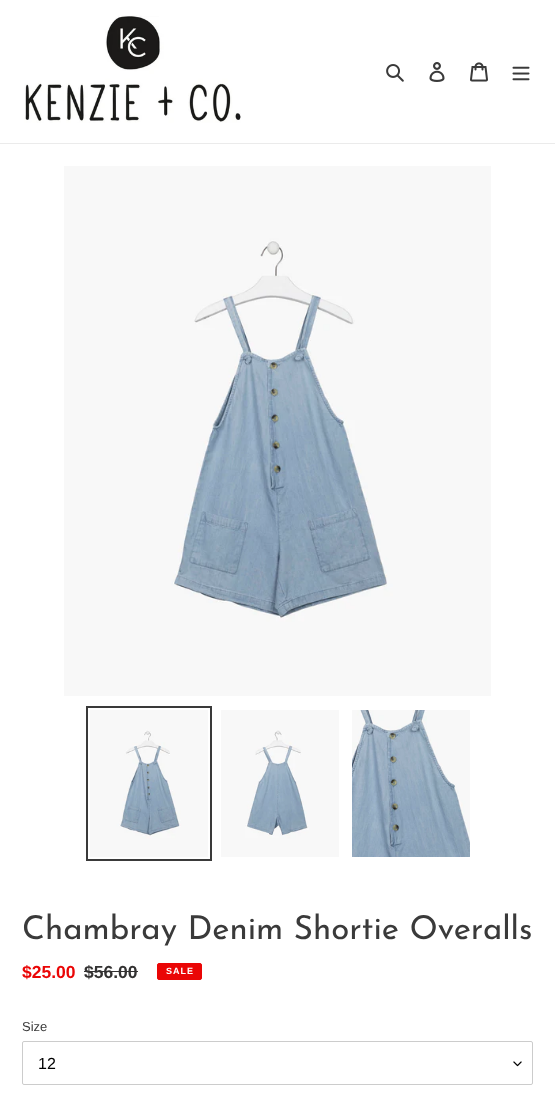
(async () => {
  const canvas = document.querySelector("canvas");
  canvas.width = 555;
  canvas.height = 1103;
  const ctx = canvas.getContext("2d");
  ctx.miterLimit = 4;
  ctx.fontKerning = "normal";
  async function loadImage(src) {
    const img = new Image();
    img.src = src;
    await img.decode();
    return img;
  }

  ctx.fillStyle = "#ffffff";
  ctx.fillRect(0, 0, 555, 1103);
  ctx.fillStyle = "#ebebeb";
  ctx.fillRect(0, 143, 555, 1);
  ctx.drawImage(await loadImage("img/1.png"), 24, 15, 217, 108);
  ctx.drawImage(await loadImage("img/2.png"), 386, 64, 18, 18);
  ctx.drawImage(await loadImage("img/3.png"), 429, 62, 16, 20);
  ctx.drawImage(await loadImage("img/4.png"), 470, 62, 18, 20);
  ctx.drawImage(await loadImage("img/5.png"), 512, 66, 18, 15);
  ctx.drawImage(await loadImage("img/6.png"), 64, 166, 427, 530);
  ctx.strokeStyle = "#3a3a3a";
  ctx.lineWidth = 2;
  ctx.strokeRect(87, 707, 124, 153);
  ctx.drawImage(await loadImage("img/7.png"), 90, 710, 118, 147);
  ctx.drawImage(await loadImage("img/8.png"), 221, 710, 118, 147);
  ctx.drawImage(await loadImage("img/9.png"), 352, 710, 118, 147);
  ctx.fillStyle = "#333232";
  ctx.fillRect(84, 971, 54, 1);
  ctx.fillStyle = "#ea0606";
  ctx.beginPath();
  ctx.roundRect(157.5, 963.5, 44, 16, 1.5);
  ctx.fill();
  ctx.strokeStyle = "#ea0606";
  ctx.lineWidth = 1;
  ctx.stroke();
  ctx.drawImage(await loadImage("img/10.png"), 513, 1061, 9, 6);
  ctx.beginPath();
  ctx.roundRect(22.5, 1041.5, 510, 43, 1.5);
  ctx.strokeStyle = "#cccccc";
  ctx.stroke();
  ctx.font = "33px Josefin Sans";
  ctx.fillStyle = "#3a3a3a";
  ctx.fillText("Chambray Denim Shortie Overalls", 22, 939);
  ctx.font = "bold 17.5px Liberation Sans";
  ctx.fillStyle = "#ea0606";
  ctx.fillText("$25.00", 22, 978);
  ctx.fillStyle = "#333232";
  ctx.fillText("$56.00", 84, 978);
  ctx.letterSpacing = "1px";
  ctx.font = "bold 9px Liberation Sans";
  ctx.fillStyle = "#ffffff";
  ctx.fillText("SALE", 166, 974);
  ctx.letterSpacing = "0px";
  ctx.font = "13px Liberation Sans";
  ctx.fillStyle = "#3a3a3a";
  ctx.fillText("Size", 22, 1031);
  ctx.font = "16px Liberation Sans";
  ctx.fillStyle = "#000000";
  ctx.fillText("12", 38, 1069);
})();
